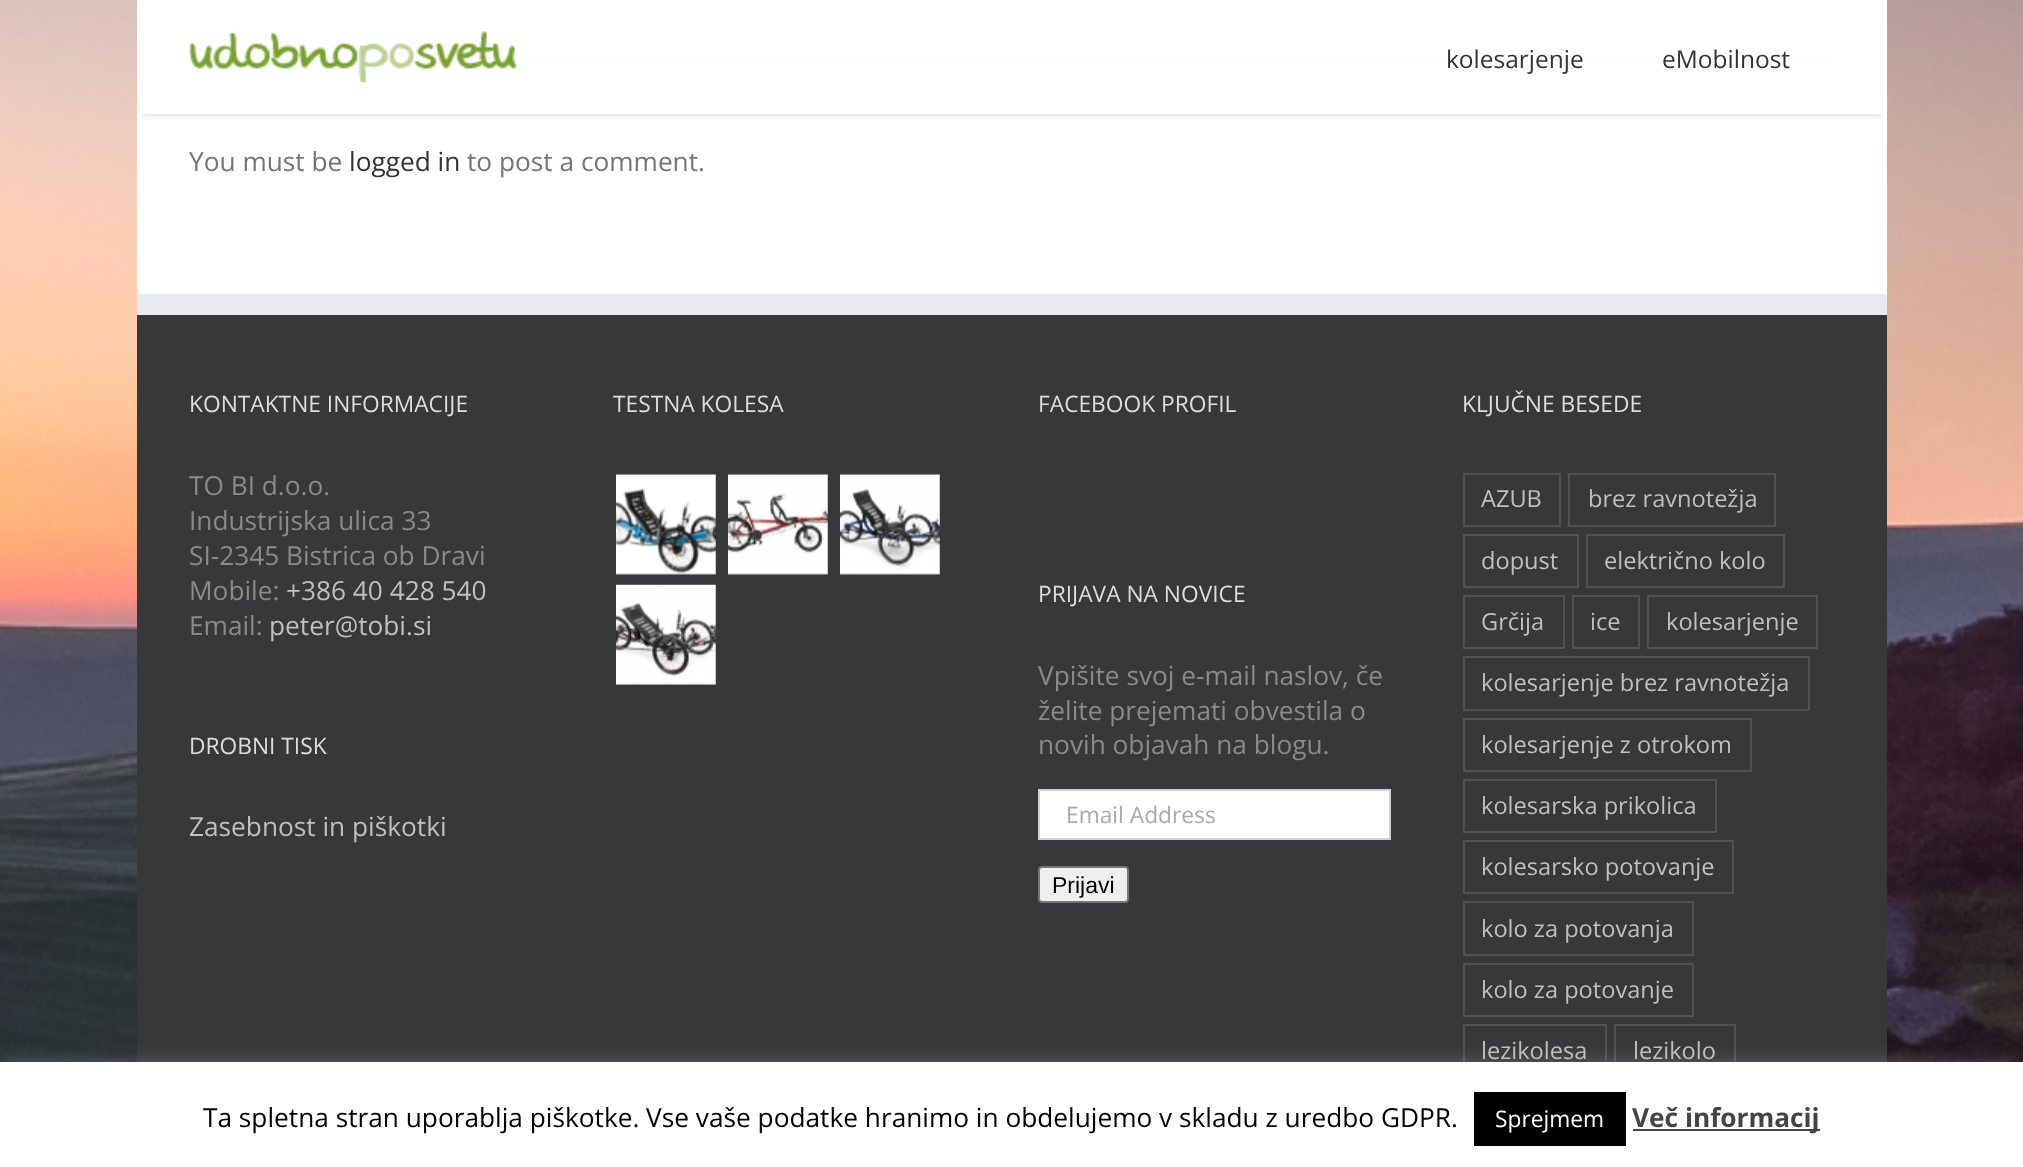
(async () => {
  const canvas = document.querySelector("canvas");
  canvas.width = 2023;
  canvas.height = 1167;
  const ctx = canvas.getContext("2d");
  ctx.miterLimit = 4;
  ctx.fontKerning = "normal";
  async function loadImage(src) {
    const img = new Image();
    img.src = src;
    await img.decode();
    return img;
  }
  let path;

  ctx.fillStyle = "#ffffff";
  ctx.fillRect(0, 0, 2023, 1167);
  ctx.drawImage(await loadImage("img/1.png"), 0, 0, 2023, 1062);
  for (const [x, y, w, h, color] of [
    [137, 0, 1750, 294, "#ffffff"],
    [464, 61, 1370, 2, "#e0dede"],
    [464, 74, 1370, 2, "#e0dede"],
  ]) {
    ctx.fillStyle = color;
    ctx.fillRect(x, y, w, h);
  }
  ctx.save();
  path = new Path2D("M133 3H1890V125H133ZM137 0H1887V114H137Z");
  ctx.clip(path, "evenodd");
  ctx.fillStyle = "rgba(0, 0, 0, 0.12)";
  ctx.filter = "blur(2.5px)";
  ctx.beginPath();
  ctx.rect(142, 12, 1739, 104);
  ctx.fill();
  ctx.filter = "none";
  ctx.restore();
  ctx.fillStyle = "rgba(255, 255, 255, 0.97)";
  ctx.fillRect(141, 61, 1741, 53);
  ctx.drawImage(await loadImage("img/2.png"), 189, 31, 328, 52);
  ctx.fillStyle = "#363839";
  ctx.fillRect(137, 315, 1750, 747);
  ctx.fillStyle = "#e9eaee";
  ctx.fillRect(137, 294, 1750, 21);
  ctx.drawImage(await loadImage("img/3.png"), 616, 473, 100, 102);
  ctx.drawImage(await loadImage("img/4.png"), 728, 473, 100, 102);
  ctx.drawImage(await loadImage("img/5.png"), 840, 473, 100, 102);
  ctx.drawImage(await loadImage("img/6.png"), 616, 584, 100, 101);
  ctx.fillStyle = "#ffffff";
  ctx.beginPath();
  ctx.rect(1039, 790, 351, 49);
  ctx.fill();
  ctx.strokeStyle = "#d2d2d2";
  ctx.lineWidth = 2;
  ctx.stroke();
  ctx.fillStyle = "#efefef";
  ctx.beginPath();
  ctx.roundRect(1039, 867, 89, 35, 3);
  ctx.fill();
  ctx.strokeStyle = "#767676";
  ctx.stroke();
  ctx.strokeStyle = "#505152";
  ctx.strokeRect(1464, 474, 96, 52);
  ctx.strokeRect(1569, 474, 206, 52);
  ctx.strokeRect(1464, 535, 114, 52);
  ctx.strokeRect(1587, 535, 197, 52);
  ctx.strokeRect(1464, 596, 100, 52);
  ctx.strokeRect(1573, 596, 66, 52);
  ctx.strokeRect(1648, 596, 169, 52);
  ctx.strokeRect(1464, 657, 345, 53);
  ctx.strokeRect(1464, 719, 287, 52);
  ctx.strokeRect(1464, 780, 252, 52);
  ctx.strokeRect(1464, 841, 269, 52);
  ctx.strokeRect(1464, 902, 229, 53);
  ctx.strokeRect(1464, 964, 229, 52);
  ctx.strokeRect(1464, 1025, 142, 52);
  ctx.strokeRect(1615, 1025, 120, 52);
  ctx.fillStyle = "rgba(172, 171, 171, 0.3)";
  ctx.filter = "blur(9px)";
  ctx.beginPath();
  ctx.rect(0, 1061, 2023, 105);
  ctx.fill();
  ctx.filter = "none";
  for (const [x, y, w, h, color] of [
    [0, 1062, 2023, 105, "#ffffff"],
    [1474, 1092, 152, 54, "#000000"],
    [1633, 1129, 187, 2, "#444444"],
  ]) {
    ctx.fillStyle = color;
    ctx.fillRect(x, y, w, h);
  }
  ctx.font = "24.5px Open Sans";
  ctx.fillStyle = "#333333";
  ctx.fillText("kolesarjenje", 1446, 68);
  ctx.fillText("eMobilnost", 1662, 68);
  ctx.font = "26.25px Open Sans";
  ctx.fillStyle = "#747474";
  ctx.fillText("You must be", 189, 171);
  ctx.fillStyle = "#333333";
  ctx.fillText("logged in", 349, 171);
  ctx.fillStyle = "#747474";
  ctx.fillText("to post a comment.", 467, 171);
  ctx.font = "22.75px Open Sans";
  ctx.fillStyle = "#dddddd";
  ctx.fillText("KONTAKTNE INFORMACIJE", 189, 412);
  ctx.font = "26.25px Open Sans";
  ctx.fillStyle = "#8c8989";
  for (const [text, x, y] of [
    ["TO BI d.o.o.", 189, 495],
    ["Industrijska ulica 33", 189, 530],
    ["SI-2345 Bistrica ob Dravi", 189, 565],
    ["Mobile:", 189, 600],
  ]) {
    ctx.fillText(text, x, y);
  }
  ctx.fillStyle = "#bfbfbf";
  ctx.fillText("+386 40 428 540", 286, 600);
  ctx.fillStyle = "#8c8989";
  ctx.fillText("Email:", 189, 635);
  ctx.fillStyle = "#bfbfbf";
  ctx.fillText("peter@tobi.si", 269, 635);
  ctx.font = "22.75px Open Sans";
  ctx.fillStyle = "#dddddd";
  ctx.fillText("DROBNI TISK", 189, 754);
  ctx.font = "26.25px Open Sans";
  ctx.fillStyle = "#bfbfbf";
  ctx.fillText("Zasebnost in piškotki", 189, 836);
  ctx.font = "22.75px Open Sans";
  ctx.fillStyle = "#dddddd";
  for (const [text, x, y] of [
    ["TESTNA KOLESA", 613, 412],
    ["FACEBOOK PROFIL", 1038, 412],
    ["PRIJAVA NA NOVICE", 1038, 602],
  ]) {
    ctx.fillText(text, x, y);
  }
  ctx.font = "26.25px Open Sans";
  ctx.fillStyle = "#8c8989";
  for (const [text, x, y] of [
    ["Vpišite svoj e-mail naslov, če", 1038, 685],
    ["želite prejemati obvestila o", 1038, 720],
    ["novih objavah na blogu.", 1038, 754],
  ]) {
    ctx.fillText(text, x, y);
  }
  ctx.font = "22.75px Open Sans";
  ctx.fillStyle = "#aaa9a9";
  ctx.fillText("Email Address", 1066, 823);
  ctx.font = "23px Liberation Sans";
  ctx.fillStyle = "#000000";
  ctx.fillText("Prijavi", 1052, 893);
  ctx.font = "22.75px Open Sans";
  ctx.fillStyle = "#dddddd";
  ctx.fillText("KLJUČNE BESEDE", 1462, 412);
  ctx.font = "23.6px Open Sans";
  ctx.fillStyle = "#bfbfbf";
  for (const [text, x, y] of [
    ["AZUB", 1481, 507],
    ["brez ravnotežja", 1588, 507],
    ["dopust", 1481, 569],
    ["električno kolo", 1604, 569],
    ["Grčija", 1481, 630],
    ["ice", 1590, 630],
    ["kolesarjenje", 1666, 630],
    ["kolesarjenje brez ravnotežja", 1481, 691],
    ["kolesarjenje z otrokom", 1481, 753],
    ["kolesarska prikolica", 1481, 814],
    ["kolesarsko potovanje", 1481, 875],
    ["kolo za potovanja", 1481, 937],
    ["kolo za potovanje", 1481, 998],
    ["lezikolesa", 1481, 1059],
    ["lezikolo", 1633, 1059],
  ]) {
    ctx.fillText(text, x, y);
  }
  ctx.font = "26.25px Open Sans";
  ctx.fillStyle = "#000000";
  ctx.fillText("Ta spletna stran uporablja piškotke. Vse vaše podatke hranimo in obdelujemo v skladu z uredbo GDPR.", 203, 1127);
  ctx.font = "22.75px Open Sans";
  ctx.fillStyle = "#ffffff";
  ctx.fillText("Sprejmem", 1495, 1127);
  ctx.font = "bold 26.25px Open Sans";
  ctx.fillStyle = "#444444";
  ctx.fillText("Več informacij", 1632, 1127);
})();
